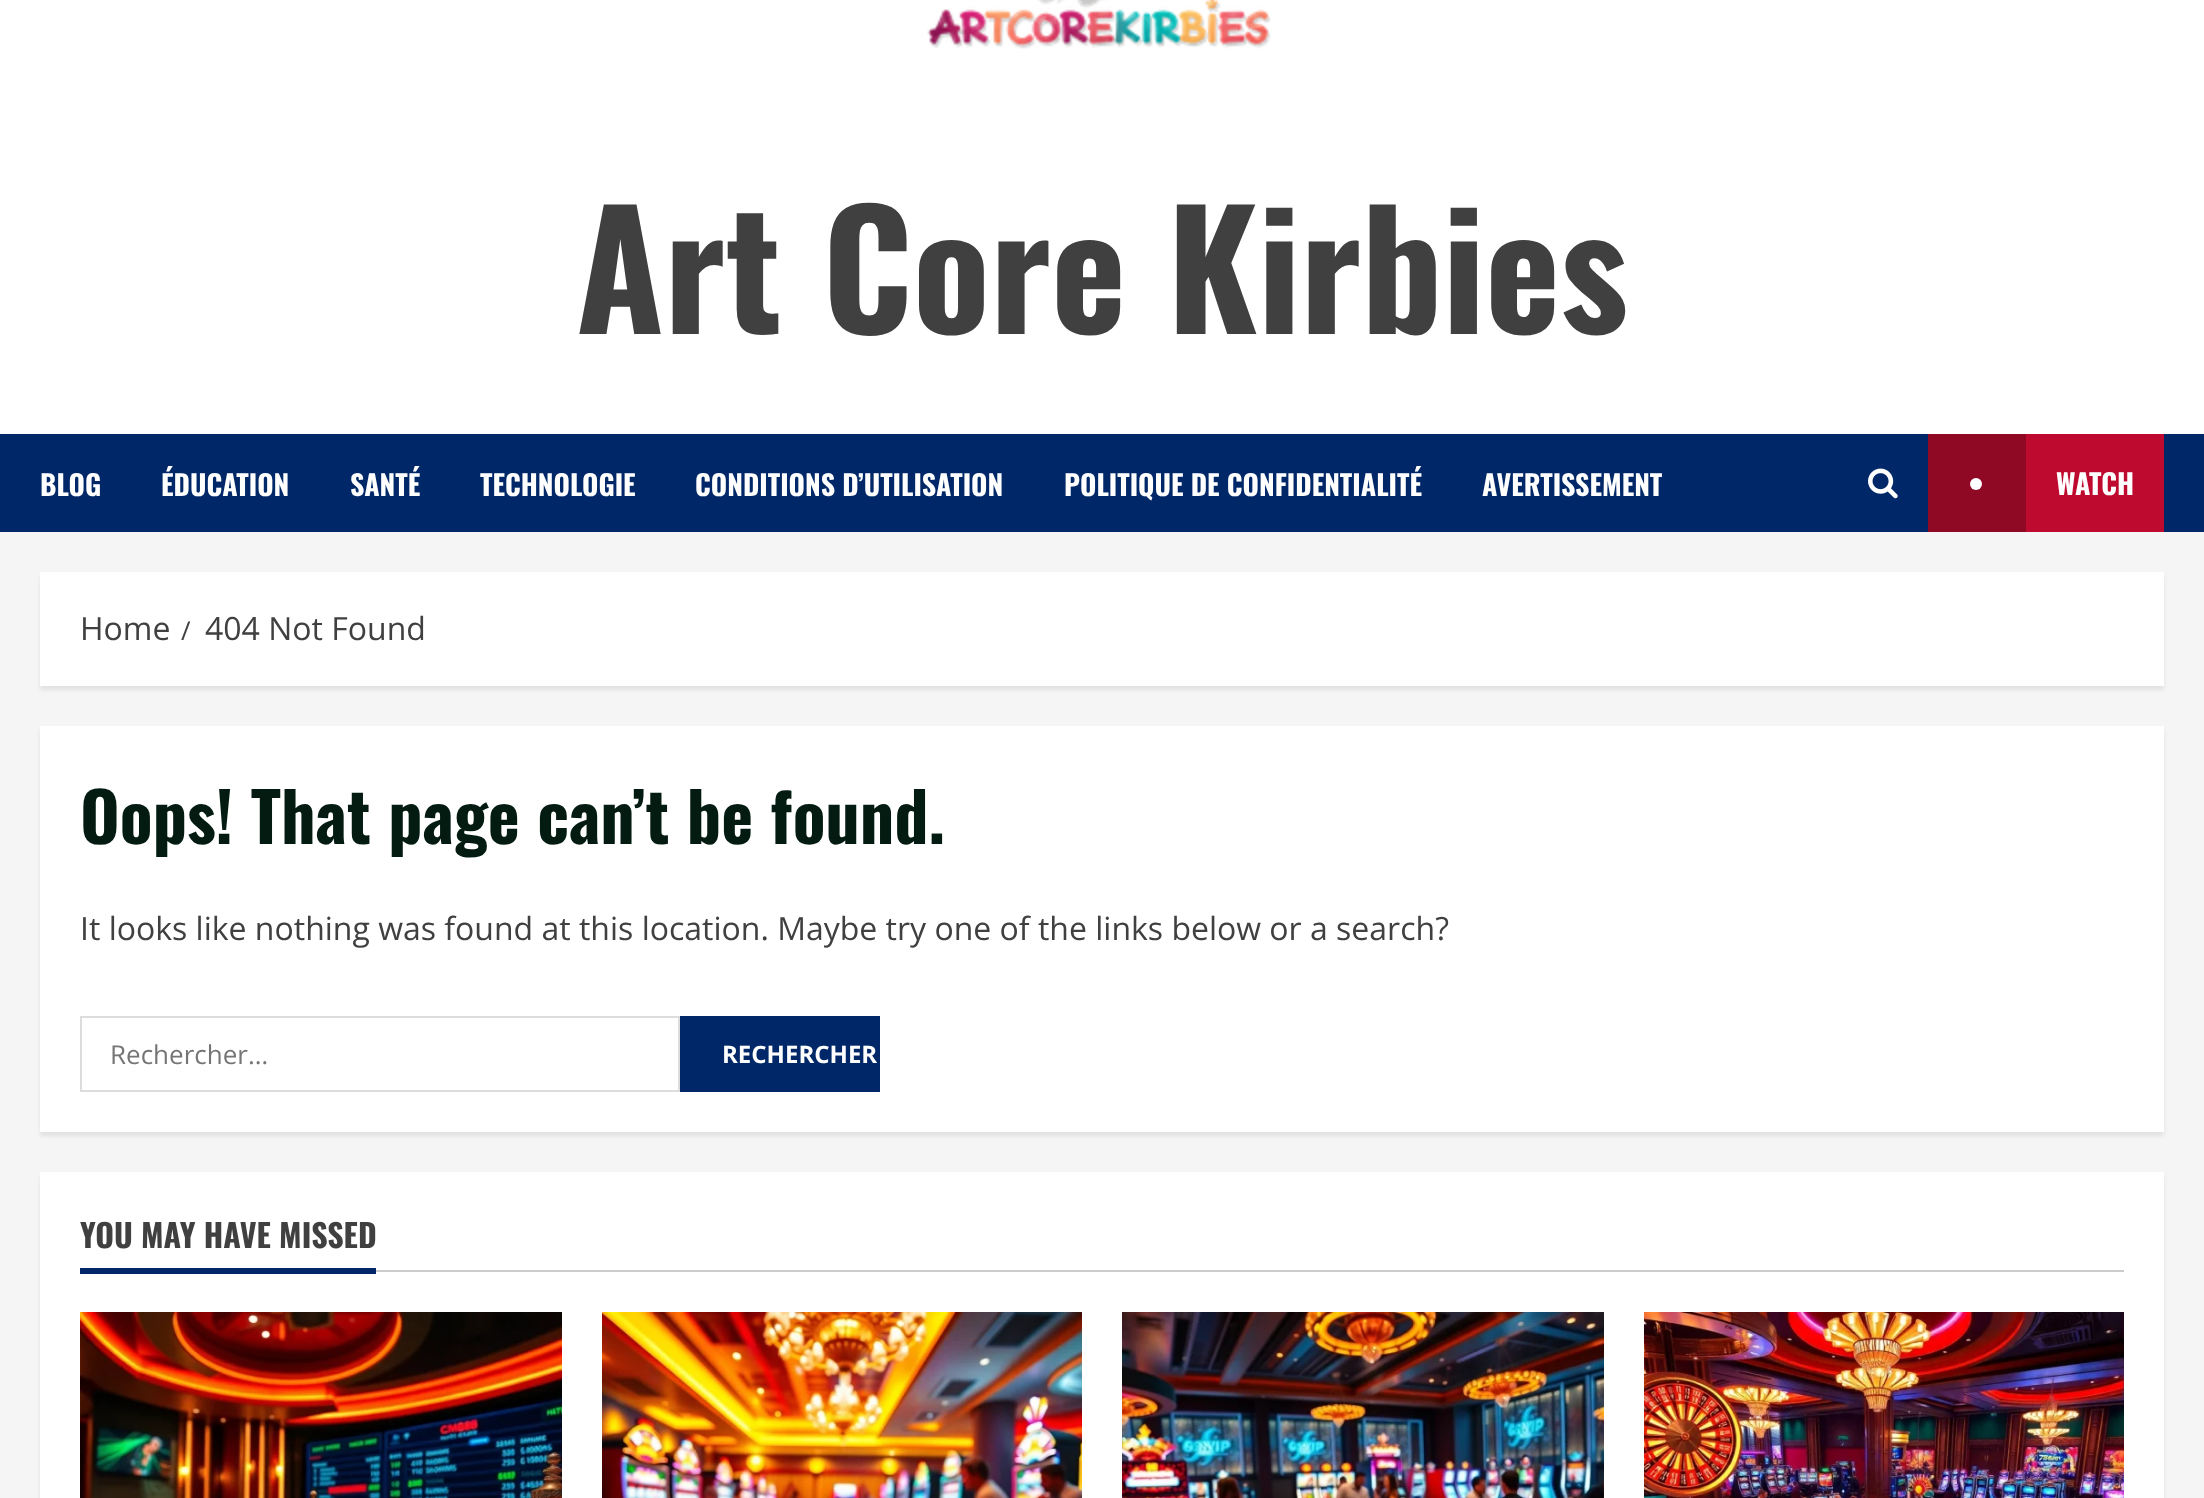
(async () => {
  const canvas = document.querySelector("canvas");
  canvas.width = 2204;
  canvas.height = 1498;
  const ctx = canvas.getContext("2d");
  ctx.miterLimit = 4;
  ctx.fontKerning = "normal";
  async function loadImage(src) {
    const img = new Image();
    img.src = src;
    await img.decode();
    return img;
  }

  ctx.fillStyle = "#f5f5f5";
  ctx.fillRect(0, 0, 2204, 1498);
  ctx.fillStyle = "#ffffff";
  ctx.fillRect(0, 0, 2204, 434);
  ctx.drawImage(await loadImage("img/1.png"), 927, 0, 344, 49);
  ctx.fillStyle = "#002868";
  ctx.fillRect(0, 434, 2204, 98);
  ctx.drawImage(await loadImage("img/2.png"), 1868, 468, 30, 31);
  ctx.fillStyle = "#bf0a30";
  ctx.fillRect(2026, 434, 138, 98);
  ctx.fillStyle = "#8f0824";
  ctx.fillRect(1928, 434, 98, 98);
  ctx.fillStyle = "#ffffff";
  ctx.beginPath();
  ctx.arc(1976, 484, 6, 0, Math.PI * 2);
  ctx.fill();
  ctx.fillStyle = "rgba(0, 0, 0, 0.08)";
  ctx.filter = "blur(2px)";
  ctx.beginPath();
  ctx.rect(40, 576, 2124, 114);
  ctx.fill();
  ctx.filter = "none";
  ctx.fillStyle = "#ffffff";
  ctx.fillRect(40, 572, 2124, 114);
  ctx.fillStyle = "rgba(0, 0, 0, 0.08)";
  ctx.filter = "blur(2px)";
  ctx.beginPath();
  ctx.rect(40, 730, 2124, 406);
  ctx.fill();
  ctx.filter = "none";
  ctx.fillStyle = "#ffffff";
  ctx.fillRect(40, 726, 2124, 406);
  ctx.strokeStyle = "#dcdcdc";
  ctx.lineWidth = 2;
  ctx.strokeRect(81, 1017, 598, 74);
  ctx.fillStyle = "#002868";
  ctx.fillRect(680, 1016, 200, 76);
  ctx.fillStyle = "rgba(0, 0, 0, 0.08)";
  ctx.filter = "blur(2px)";
  ctx.beginPath();
  ctx.rect(40, 1176, 2124, 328);
  ctx.fill();
  ctx.filter = "none";
  for (const [x, y, w, h, color] of [
    [40, 1172, 2124, 326, "#ffffff"],
    [376, 1270, 1748, 2, "#cccccc"],
    [80, 1268, 296, 6, "#002868"],
  ]) {
    ctx.fillStyle = color;
    ctx.fillRect(x, y, w, h);
  }
  ctx.drawImage(await loadImage("img/3.png"), 80, 1312, 482, 186);
  ctx.drawImage(await loadImage("img/4.png"), 602, 1312, 480, 186);
  ctx.drawImage(await loadImage("img/5.png"), 1122, 1312, 482, 186);
  ctx.drawImage(await loadImage("img/6.png"), 1644, 1312, 480, 186);
  ctx.font = "bold 160px Oswald";
  ctx.fillStyle = "#404040";
  ctx.fillText("Art Core Kirbies", 576, 334);
  ctx.font = "bold 28px Oswald";
  ctx.fillStyle = "#ffffff";
  for (const [text, x, y] of [
    ["BLOG", 40, 496],
    ["ÉDUCATION", 161, 496],
    ["SANTÉ", 350, 496],
    ["TECHNOLOGIE", 480, 496],
    ["CONDITIONS D’UTILISATION", 695, 496],
    ["POLITIQUE DE CONFIDENTIALITÉ", 1064, 496],
    ["AVERTISSEMENT", 1482, 496],
    ["WATCH", 2056, 495],
  ]) {
    ctx.fillText(text, x, y);
  }
  ctx.font = "32px Open Sans";
  ctx.fillStyle = "#404040";
  ctx.fillText("Home", 80, 640);
  ctx.font = "26px Open Sans";
  ctx.fillText("/", 181, 640);
  ctx.font = "32px Open Sans";
  ctx.fillText("404 Not Found", 205, 640);
  ctx.font = "bold 68px Oswald";
  ctx.fillStyle = "#031b11";
  ctx.fillText("Oops! That page can’t be found.", 80, 844);
  ctx.font = "32px Open Sans";
  ctx.fillStyle = "#404040";
  ctx.fillText("It looks like nothing was found at this location. Maybe try one of the links below or a search?", 80, 940);
  ctx.font = "26px Open Sans";
  ctx.fillStyle = "#757575";
  ctx.fillText("Rechercher…", 110, 1064);
  ctx.font = "bold 24px Open Sans";
  ctx.fillStyle = "#ffffff";
  ctx.fillText("RECHERCHER", 722, 1063);
  ctx.font = "bold 32px Oswald";
  ctx.fillStyle = "#404040";
  ctx.fillText("YOU MAY HAVE MISSED", 80, 1248);
})();
